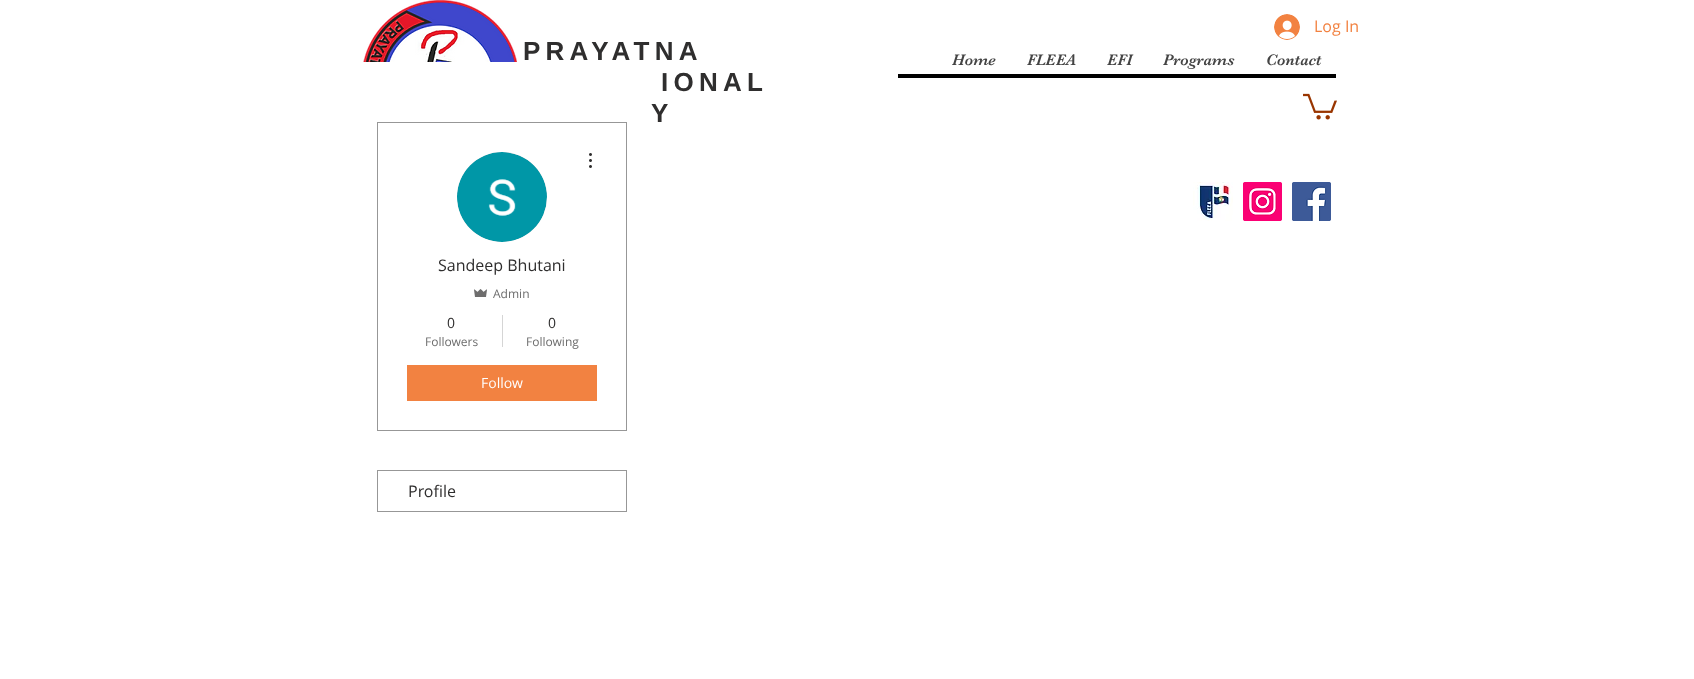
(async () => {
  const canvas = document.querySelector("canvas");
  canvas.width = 1694;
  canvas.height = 679;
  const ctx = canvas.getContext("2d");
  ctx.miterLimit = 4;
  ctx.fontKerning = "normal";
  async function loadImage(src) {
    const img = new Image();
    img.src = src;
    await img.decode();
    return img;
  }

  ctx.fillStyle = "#ffffff";
  ctx.fillRect(0, 0, 1694, 679);
  ctx.drawImage(await loadImage("img/1.png"), 363, 0, 154, 62);
  ctx.drawImage(await loadImage("img/2.png"), 1274, 14, 26, 26);
  ctx.fillStyle = "#000000";
  ctx.fillRect(898, 74, 438, 4);
  ctx.drawImage(await loadImage("img/3.png"), 1303, 93, 34, 27);
  ctx.drawImage(await loadImage("img/4.png"), 1193, 182, 40, 39);
  ctx.drawImage(await loadImage("img/5.png"), 1243, 182, 39, 39);
  ctx.drawImage(await loadImage("img/6.png"), 1292, 182, 39, 39);
  ctx.strokeStyle = "#979797";
  ctx.strokeRect(377.5, 122.5, 249, 308);
  ctx.fillStyle = "#d8d8d8";
  ctx.beginPath();
  ctx.arc(502, 197, 45, 0, Math.PI * 2);
  ctx.fill();
  ctx.drawImage(await loadImage("img/7.png"), 457, 152, 90, 90);
  ctx.drawImage(await loadImage("img/8.png"), 589, 153, 3, 15);
  ctx.drawImage(await loadImage("img/9.png"), 474, 289, 13, 8);
  ctx.fillStyle = "#d5d5d5";
  ctx.fillRect(502, 315, 1, 32);
  ctx.fillStyle = "#f28241";
  ctx.fillRect(407, 365, 190, 36);
  ctx.strokeRect(377.5, 470.5, 249, 41);
  ctx.font = "16px Open Sans";
  ctx.fillText("Log In", 1314, 32);
  ctx.letterSpacing = "5.25px";
  ctx.font = "bold 26px Liberation Sans";
  ctx.fillStyle = "#2f2e2e";
  for (const [text, x, y] of [
    ["PRAYATNA", 523, 60],
    ["IONAL", 661, 91],
    ["Y", 651, 122],
  ]) {
    ctx.fillText(text, x, y);
  }
  ctx.letterSpacing = "0px";
  ctx.font = "16px 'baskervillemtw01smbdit'";
  ctx.fillStyle = "#444444";
  for (const [text, x, y] of [
    ["Home", 952, 65],
    ["FLEEA", 1027, 65],
    ["EFI", 1107, 65],
    ["Programs", 1163, 65],
    ["Contact", 1266, 65],
  ]) {
    ctx.fillText(text, x, y);
  }
  ctx.font = "16px Open Sans";
  ctx.fillStyle = "#2f2e2e";
  ctx.fillText("Sandeep Bhutani", 438, 271);
  ctx.font = "12px Open Sans";
  ctx.fillStyle = "#6d6d6d";
  ctx.fillText("Admin", 493, 298);
  ctx.font = "14px Open Sans";
  ctx.fillStyle = "#2f2e2e";
  ctx.fillText("0", 447, 328);
  ctx.font = "12px Open Sans";
  ctx.fillStyle = "#6d6d6d";
  ctx.fillText("Followers", 425, 346);
  ctx.font = "14px Open Sans";
  ctx.fillStyle = "#2f2e2e";
  ctx.fillText("0", 548, 328);
  ctx.font = "12px Open Sans";
  ctx.fillStyle = "#6d6d6d";
  ctx.fillText("Following", 526, 346);
  ctx.font = "14px Open Sans";
  ctx.fillStyle = "#ffffff";
  ctx.fillText("Follow", 481, 388);
  ctx.font = "16px Open Sans";
  ctx.fillStyle = "#2f2e2e";
  ctx.fillText("Profile", 408, 497);
})();
